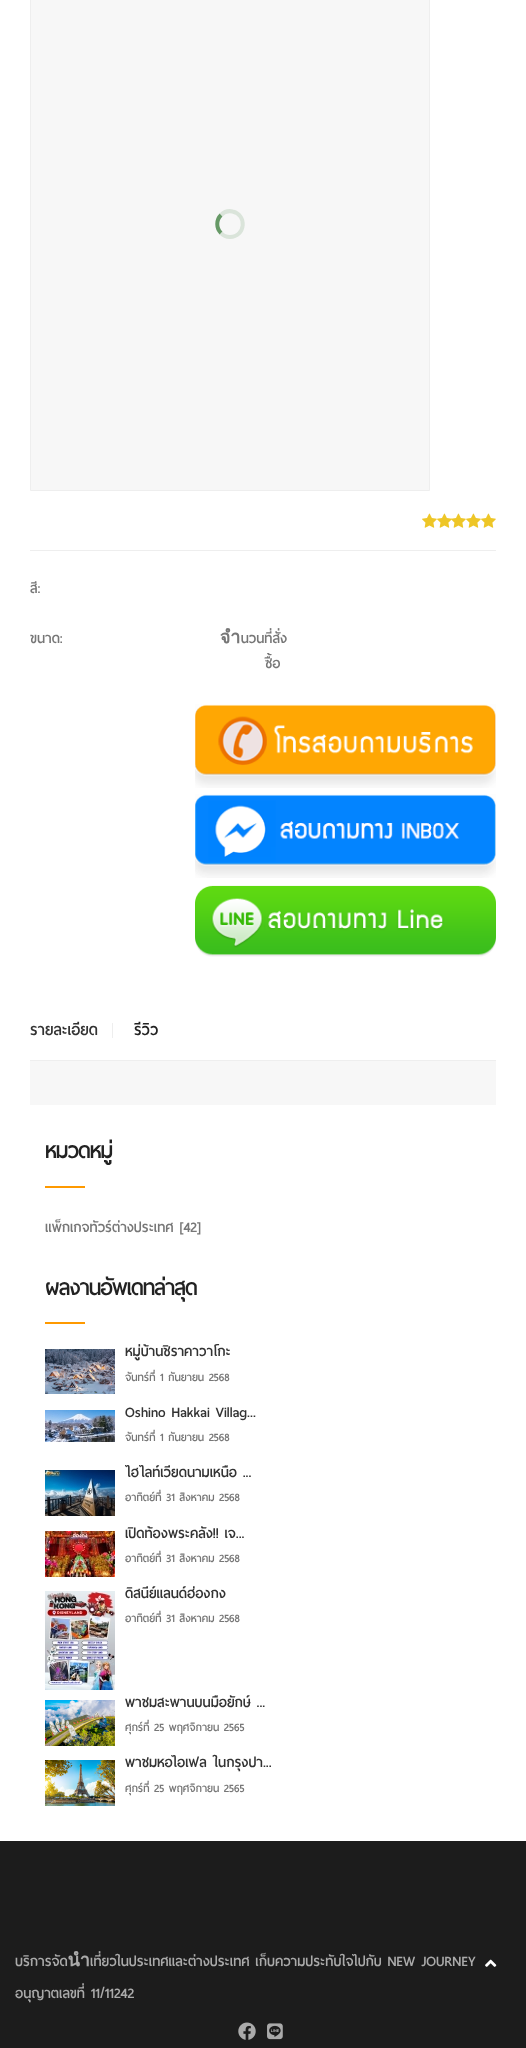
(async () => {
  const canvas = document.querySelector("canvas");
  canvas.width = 526;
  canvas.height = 2048;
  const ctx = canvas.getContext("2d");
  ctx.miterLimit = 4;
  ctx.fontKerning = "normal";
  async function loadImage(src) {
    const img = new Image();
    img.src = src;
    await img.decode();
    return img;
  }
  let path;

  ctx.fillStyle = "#ffffff";
  ctx.fillRect(0, 0, 526, 2048);
  ctx.fillStyle = "#f7f7f7";
  ctx.beginPath();
  ctx.rect(30.5, -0.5, 399, 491);
  ctx.fill();
  ctx.strokeStyle = "#eeeeee";
  ctx.stroke();
  path = new Path2D("M221 215C224 212 228.5 210.5 232.5 211.5C247.5 214.5 245.5 237 230 237C226.5 237 223 235.5 221 233");
  ctx.strokeStyle = "#dae4da";
  ctx.lineWidth = 4;
  ctx.stroke(path);
  path = new Path2D("M221 233C216 228 216 220 221 215");
  ctx.strokeStyle = "#669966";
  ctx.stroke(path);
  ctx.drawImage(await loadImage("img/1.png"), 422, 513, 15, 15);
  ctx.drawImage(await loadImage("img/1.png"), 437, 513, 15, 15);
  ctx.drawImage(await loadImage("img/2.png"), 451, 513, 15, 15);
  ctx.drawImage(await loadImage("img/1.png"), 466, 513, 15, 15);
  ctx.drawImage(await loadImage("img/1.png"), 481, 513, 15, 15);
  ctx.fillStyle = "#eeeeee";
  ctx.fillRect(30, 550, 466, 1);
  ctx.drawImage(await loadImage("img/3.png"), 195, 704, 301, 84);
  ctx.drawImage(await loadImage("img/4.png"), 195, 794, 301, 84);
  ctx.drawImage(await loadImage("img/5.png"), 195, 885, 301, 72);
  for (const [x, y, w, h, color] of [
    [30, 1060, 466, 1, "#eeeeee"],
    [112, 1023, 1, 15, "#eeeeee"],
    [30, 1061, 466, 44, "#f7f7f7"],
    [45, 1186, 40, 2, "#fe9900"],
    [45, 1322, 40, 2, "#fe9900"],
  ]) {
    ctx.fillStyle = color;
    ctx.fillRect(x, y, w, h);
  }
  ctx.drawImage(await loadImage("img/6.png"), 45, 1349, 70, 45);
  ctx.drawImage(await loadImage("img/7.png"), 45, 1410, 70, 32);
  ctx.drawImage(await loadImage("img/8.png"), 45, 1470, 70, 46);
  ctx.drawImage(await loadImage("img/9.png"), 45, 1531, 70, 46);
  ctx.drawImage(await loadImage("img/10.png"), 45, 1591, 70, 99);
  ctx.drawImage(await loadImage("img/11.png"), 45, 1700, 70, 46);
  ctx.drawImage(await loadImage("img/12.png"), 45, 1760, 70, 46);
  ctx.fillStyle = "#1c1c1c";
  ctx.fillRect(0, 1841, 526, 207);
  ctx.drawImage(await loadImage("img/13.png"), 238, 2022, 18, 18);
  ctx.drawImage(await loadImage("img/14.png"), 267, 2023, 16, 17);
  ctx.drawImage(await loadImage("img/15.png"), 485, 1959, 12, 8);
  ctx.font = "bold 18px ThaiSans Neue";
  ctx.fillStyle = "#777777";
  for (const [text, x, y] of [
    ["สี:", 30, 593],
    ["ขนาด:", 30, 643],
    ["จำนวนที่สั่ง", 220, 643],
    ["ซื้อ", 265, 668],
  ]) {
    ctx.fillText(text, x, y);
  }
  ctx.font = "bold 20px ThaiSans Neue";
  ctx.fillStyle = "#333333";
  ctx.fillText("รายละเอียด", 30, 1035);
  ctx.fillStyle = "#222222";
  ctx.fillText("รีวิว", 134, 1035);
  ctx.letterSpacing = "-1px";
  ctx.font = "bold 28px ThaiSans Neue";
  ctx.fillText("หมวดหมู่", 45, 1158);
  ctx.letterSpacing = "0px";
  ctx.font = "bold 18px ThaiSans Neue";
  ctx.fillStyle = "#777777";
  ctx.fillText("แพ็กเกจทัวร์ต่างประเทศ [42]", 45, 1232);
  ctx.letterSpacing = "-1px";
  ctx.font = "bold 28px ThaiSans Neue";
  ctx.fillStyle = "#222222";
  ctx.fillText("ผลงานอัพเดทล่าสุด", 45, 1295);
  ctx.letterSpacing = "0px";
  ctx.font = "bold 18px ThaiSans Neue";
  ctx.fillStyle = "#333333";
  ctx.fillText("หมู่บ้านชิราคาวาโกะ", 125, 1356);
  ctx.save();
  ctx.beginPath();
  ctx.rect(125, 1339, 356, 61);
  ctx.clip();
  ctx.font = "bold 14px ThaiSans Neue";
  ctx.fillStyle = "#777777";
  ctx.fillText("จันทร์ที่ 1 กันยายน 2568", 125, 1381);
  ctx.restore();
  ctx.fillText("Oshino Hakkai Villag...", 125, 1417);
  ctx.save();
  ctx.beginPath();
  ctx.rect(125, 1400, 356, 60);
  ctx.clip();
  ctx.font = "bold 14px ThaiSans Neue";
  ctx.fillStyle = "#777777";
  ctx.fillText("จันทร์ที่ 1 กันยายน 2568", 125, 1441);
  ctx.restore();
  ctx.fillText("ไฮไลท์เวียดนามเหนือ ...", 125, 1477);
  ctx.font = "bold 14px ThaiSans Neue";
  ctx.fillStyle = "#777777";
  ctx.fillText("อาทิตย์ที่ 31 สิงหาคม 2568", 125, 1501);
  ctx.save();
  ctx.beginPath();
  ctx.rect(125, 1521, 356, 60);
  ctx.clip();
  ctx.font = "bold 18px ThaiSans Neue";
  ctx.fillStyle = "#333333";
  ctx.fillText("เปิดท้องพระคลัง!! เจ...", 125, 1538);
  ctx.restore();
  ctx.fillText("อาทิตย์ที่ 31 สิงหาคม 2568", 125, 1562);
  ctx.save();
  ctx.beginPath();
  ctx.rect(125, 1581, 356, 109);
  ctx.clip();
  ctx.font = "bold 18px ThaiSans Neue";
  ctx.fillStyle = "#333333";
  ctx.fillText("ดิสนีย์แลนด์ฮ่องกง", 125, 1598);
  ctx.restore();
  ctx.fillText("อาทิตย์ที่ 31 สิงหาคม 2568", 125, 1622);
  ctx.font = "bold 18px ThaiSans Neue";
  ctx.fillStyle = "#333333";
  ctx.fillText("พาชมสะพานบนมือยักษ์ ...", 125, 1707);
  ctx.save();
  ctx.beginPath();
  ctx.rect(125, 1690, 356, 60);
  ctx.clip();
  ctx.font = "bold 14px ThaiSans Neue";
  ctx.fillStyle = "#777777";
  ctx.fillText("ศุกร์ที่ 25 พฤศจิกายน 2565", 125, 1731);
  ctx.restore();
  ctx.fillText("พาชมหอไอเฟล ในกรุงปา...", 125, 1767);
  ctx.save();
  ctx.beginPath();
  ctx.rect(125, 1750, 356, 61);
  ctx.clip();
  ctx.font = "bold 14px ThaiSans Neue";
  ctx.fillStyle = "#777777";
  ctx.fillText("ศุกร์ที่ 25 พฤศจิกายน 2565", 125, 1792);
  ctx.restore();
  ctx.fillStyle = "#aaaaaa";
  ctx.fillText("บริการจัดนำเที่ยวในประเทศและต่างประเทศ เก็บความประทับใจไปกับ NEW JOURNEY", 15, 1966);
  ctx.fillText("อนุญาตเลขที่ 11/11242", 15, 1998);
})();
